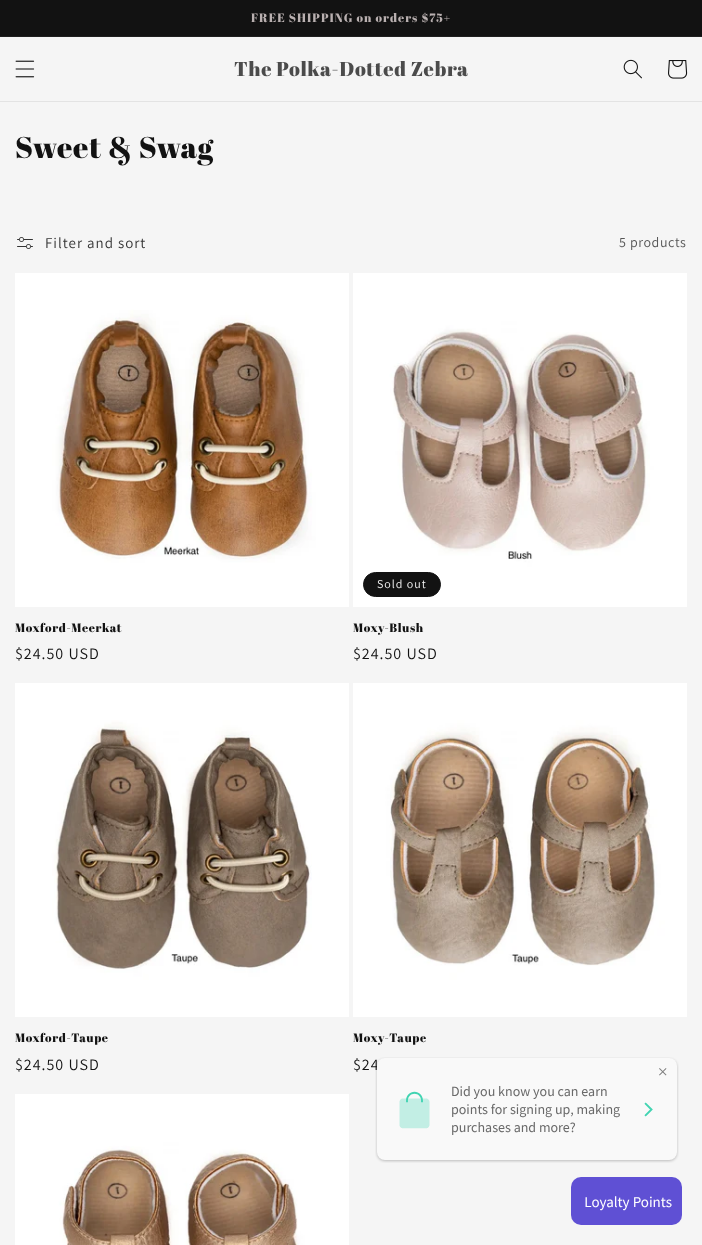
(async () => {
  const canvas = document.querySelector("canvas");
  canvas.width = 702;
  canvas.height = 1245;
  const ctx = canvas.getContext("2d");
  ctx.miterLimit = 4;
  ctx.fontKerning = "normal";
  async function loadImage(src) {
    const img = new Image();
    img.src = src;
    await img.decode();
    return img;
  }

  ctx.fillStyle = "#f5f5f5";
  ctx.fillRect(0, 0, 702, 1245);
  for (const [x, y, w, h, color] of [
    [0, 0, 702, 36, "#121212"],
    [0, 36, 702, 1, "#1f1f1f"],
    [0, 101, 702, 1, "#e3e3e3"],
  ]) {
    ctx.fillStyle = color;
    ctx.fillRect(x, y, w, h);
  }
  ctx.drawImage(await loadImage("img/1.png"), 15, 60, 20, 18);
  ctx.drawImage(await loadImage("img/2.png"), 623, 59, 19, 20);
  ctx.drawImage(await loadImage("img/3.png"), 668, 60, 20, 19);
  ctx.drawImage(await loadImage("img/4.png"), 17, 237, 16, 12);
  ctx.drawImage(await loadImage("img/5.png"), 15, 273, 334, 334);
  ctx.drawImage(await loadImage("img/6.png"), 353, 273, 334, 334);
  ctx.fillStyle = "#121212";
  ctx.beginPath();
  ctx.roundRect(363.5, 572.5, 77, 24, 12);
  ctx.fill();
  ctx.strokeStyle = "#121212";
  ctx.stroke();
  ctx.drawImage(await loadImage("img/7.png"), 15, 683, 334, 334);
  ctx.drawImage(await loadImage("img/8.png"), 353, 683, 334, 334);
  ctx.drawImage(await loadImage("img/9.png"), 15, 1094, 334, 151);
  ctx.drawImage(await loadImage("img/11.png"), 571, 1177, 111, 48);
  ctx.letterSpacing = "1px";
  ctx.font = "12px Abril Fatface";
  ctx.fillStyle = "#b9b0b0";
  ctx.fillText("FREE SHIPPING on orders $75+", 251, 22);
  ctx.letterSpacing = "0.6px";
  ctx.font = "20px Abril Fatface";
  ctx.fillStyle = "#4b4b4b";
  ctx.fillText("The Polka-Dotted Zebra", 234, 76);
  ctx.font = "30px Abril Fatface";
  ctx.fillStyle = "#121212";
  ctx.fillText("Sweet & Swag", 15, 158);
  ctx.letterSpacing = "1px";
  ctx.font = "15px Assistant";
  ctx.fillStyle = "#343434";
  ctx.fillText("Filter and sort", 45, 248);
  ctx.letterSpacing = "0.6px";
  ctx.font = "14px Assistant";
  ctx.fillStyle = "#565656";
  ctx.fillText("5 products", 619, 247);
  ctx.font = "12px Abril Fatface";
  ctx.fillStyle = "#121212";
  ctx.fillText("Moxford-Meerkat", 15, 632);
  ctx.letterSpacing = "1px";
  ctx.font = "16px Assistant";
  ctx.fillText("$24.50 USD", 15, 659);
  ctx.font = "12px Assistant";
  ctx.fillStyle = "#f5f5f5";
  ctx.fillText("Sold out", 377, 588);
  ctx.letterSpacing = "0.6px";
  ctx.font = "12px Abril Fatface";
  ctx.fillStyle = "#121212";
  ctx.fillText("Moxy-Blush", 353, 632);
  ctx.letterSpacing = "1px";
  ctx.font = "16px Assistant";
  ctx.fillText("$24.50 USD", 353, 659);
  ctx.letterSpacing = "0.6px";
  ctx.font = "12px Abril Fatface";
  ctx.fillText("Moxford-Taupe", 15, 1042);
  ctx.letterSpacing = "1px";
  ctx.font = "16px Assistant";
  ctx.fillText("$24.50 USD", 15, 1070);
  ctx.letterSpacing = "0.6px";
  ctx.font = "12px Abril Fatface";
  ctx.fillText("Moxy-Taupe", 353, 1042);
  ctx.letterSpacing = "1px";
  ctx.font = "16px Assistant";
  ctx.fillText("$24", 353, 1070);
  ctx.drawImage(await loadImage("img/10.png"), 375, 1057, 304, 106);
})();
